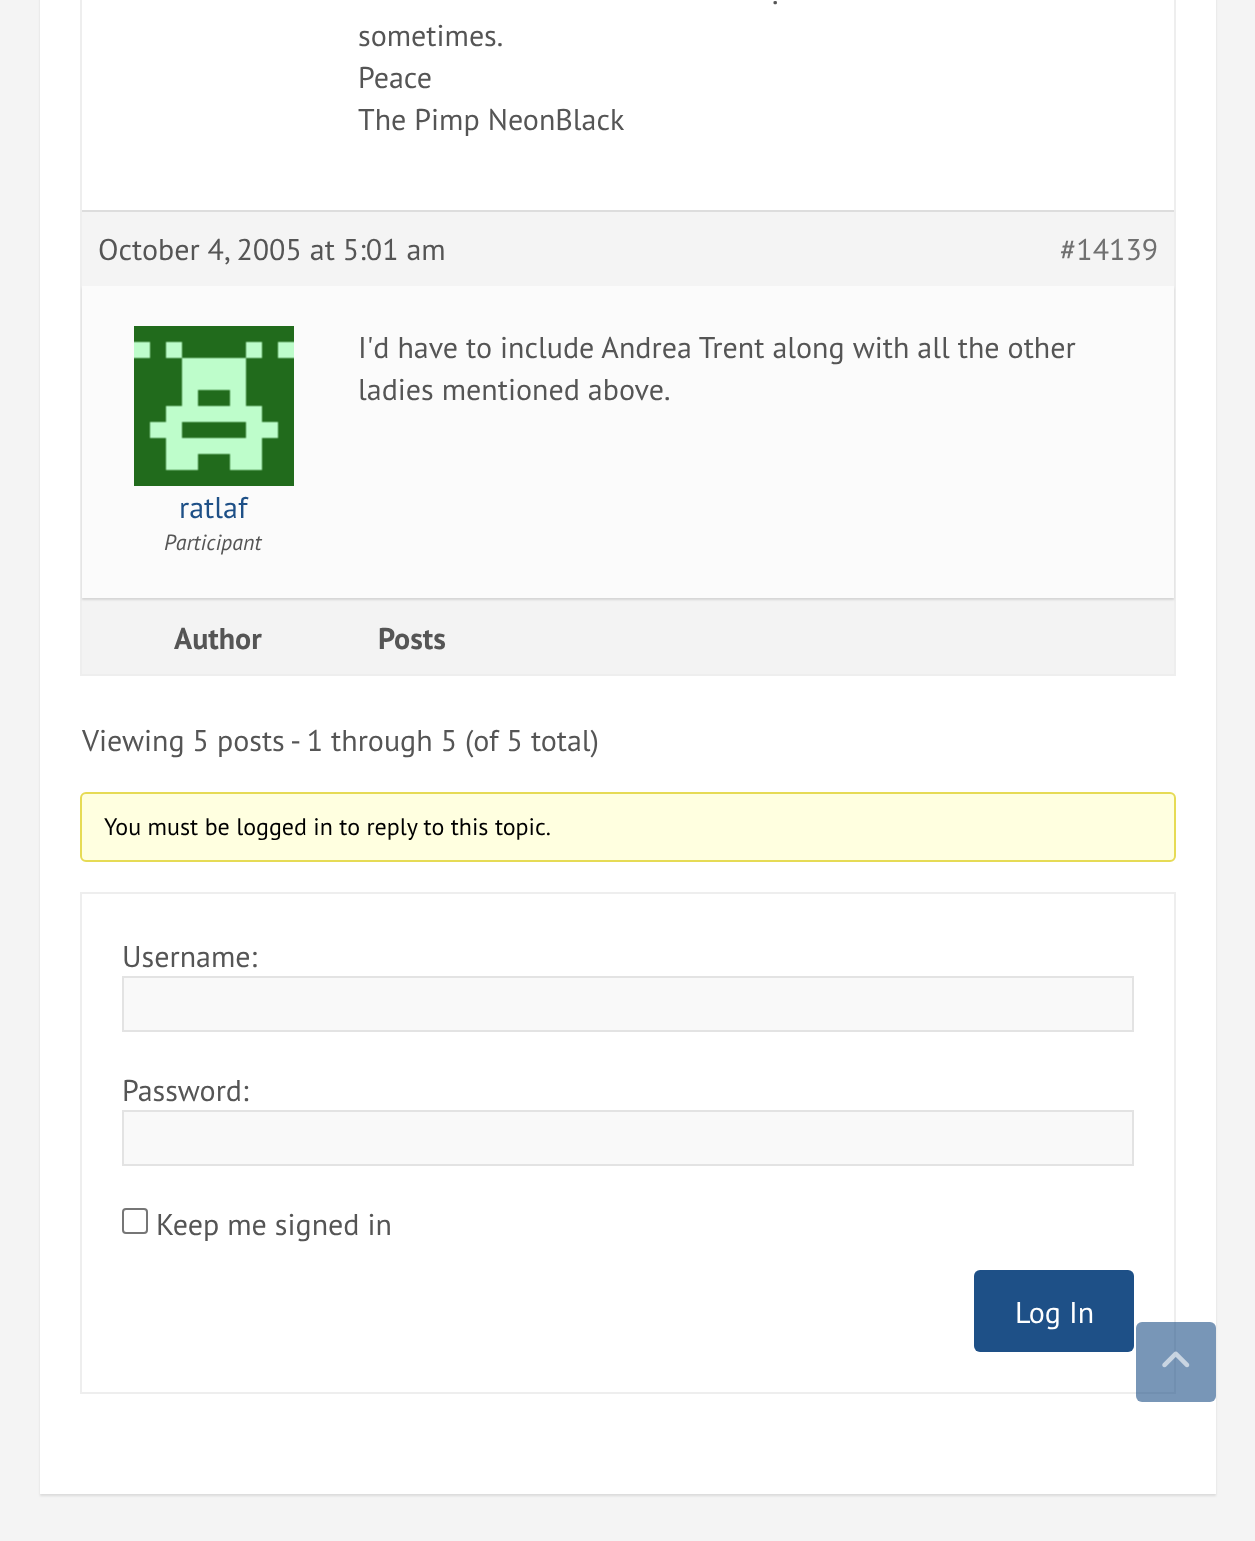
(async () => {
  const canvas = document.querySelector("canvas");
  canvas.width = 1255;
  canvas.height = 1541;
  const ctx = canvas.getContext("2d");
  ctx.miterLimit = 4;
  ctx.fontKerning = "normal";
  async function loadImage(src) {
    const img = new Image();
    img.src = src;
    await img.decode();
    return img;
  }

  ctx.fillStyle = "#f4f4f4";
  ctx.fillRect(0, 0, 1255, 1541);
  ctx.fillStyle = "rgba(0, 0, 0, 0.1)";
  ctx.filter = "blur(1px)";
  ctx.beginPath();
  ctx.rect(40, -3, 1176, 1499);
  ctx.fill();
  ctx.filter = "none";
  ctx.fillStyle = "#ffffff";
  ctx.fillRect(40, 0, 1176, 1494);
  ctx.strokeStyle = "#eeeeee";
  ctx.lineWidth = 2;
  ctx.strokeRect(81, -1, 1094, 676);
  for (const [x, y, w, h, color] of [
    [82, 212, 1092, 74, "#f4f4f4"],
    [82, 210, 1092, 2, "#dddddd"],
    [82, 600, 1092, 74, "#f3f3f3"],
    [82, 598, 1092, 2, "#eeeeee"],
  ]) {
    ctx.fillStyle = color;
    ctx.fillRect(x, y, w, h);
  }
  ctx.fillStyle = "rgba(0, 0, 0, 0.1)";
  ctx.filter = "blur(1px)";
  ctx.beginPath();
  ctx.rect(82, 288, 1092, 312);
  ctx.fill();
  ctx.filter = "none";
  ctx.fillStyle = "#fbfbfb";
  ctx.fillRect(82, 286, 1092, 312);
  ctx.drawImage(await loadImage("img/1.png"), 134, 326, 160, 160);
  ctx.fillStyle = "#ffffe0";
  ctx.beginPath();
  ctx.roundRect(81, 793, 1094, 68, 5);
  ctx.fill();
  ctx.strokeStyle = "#e6db55";
  ctx.stroke();
  ctx.strokeStyle = "#eeeeee";
  ctx.strokeRect(81, 893, 1094, 500);
  ctx.fillStyle = "#f9f9f9";
  ctx.beginPath();
  ctx.rect(123, 977, 1010, 54);
  ctx.fill();
  ctx.strokeStyle = "#e3e3e3";
  ctx.stroke();
  ctx.beginPath();
  ctx.rect(123, 1111, 1010, 54);
  ctx.fill();
  ctx.stroke();
  ctx.beginPath();
  ctx.roundRect(123, 1209, 24, 24, 3);
  ctx.strokeStyle = "#767676";
  ctx.stroke();
  ctx.fillStyle = "#1e5087";
  ctx.beginPath();
  ctx.roundRect(974, 1270, 160, 82, 6);
  ctx.fill();
  ctx.fillStyle = "rgba(30, 80, 135, 0.6)";
  ctx.beginPath();
  ctx.roundRect(1136, 1322, 80, 80, 6);
  ctx.fill();
  ctx.drawImage(await loadImage("img/2.png"), 1162, 1351, 28, 17);
  ctx.font = "30px PT Sans";
  ctx.fillStyle = "#555555";
  for (const [text, x, y] of [
    [".", 772, 4],
    ["sometimes.", 358, 46],
    ["Peace", 358, 88],
    ["The Pimp NeonBlack", 358, 130],
    ["October 4, 2005 at 5:01 am", 98, 260],
  ]) {
    ctx.fillText(text, x, y);
  }
  ctx.fillStyle = "#707070";
  ctx.fillText("#14139", 1060, 260);
  ctx.fillStyle = "#555555";
  ctx.fillText("I'd have to include Andrea Trent along with all the other", 358, 358);
  ctx.fillText("ladies mentioned above.", 358, 400);
  ctx.fillStyle = "#1e5087";
  ctx.fillText("ratlaf", 179, 518);
  ctx.font = "italic 22px PT Sans";
  ctx.fillStyle = "#555555";
  ctx.fillText("Participant", 164, 550);
  ctx.font = "bold 30px PT Sans";
  ctx.fillText("Author", 174, 649);
  ctx.fillText("Posts", 378, 649);
  ctx.font = "30px PT Sans";
  ctx.fillText("Viewing 5 posts - 1 through 5 (of 5 total)", 82, 751);
  ctx.font = "24px PT Sans";
  ctx.fillStyle = "#000000";
  ctx.fillText("You must be logged in to reply to this topic.", 104, 835);
  ctx.font = "30px PT Sans";
  ctx.fillStyle = "#555555";
  for (const [text, x, y] of [
    ["Username:", 122, 967],
    ["Password:", 122, 1101],
    ["Keep me signed in", 156, 1235],
  ]) {
    ctx.fillText(text, x, y);
  }
  ctx.fillStyle = "#ffffff";
  ctx.fillText("Log In", 1015, 1323);
})();
